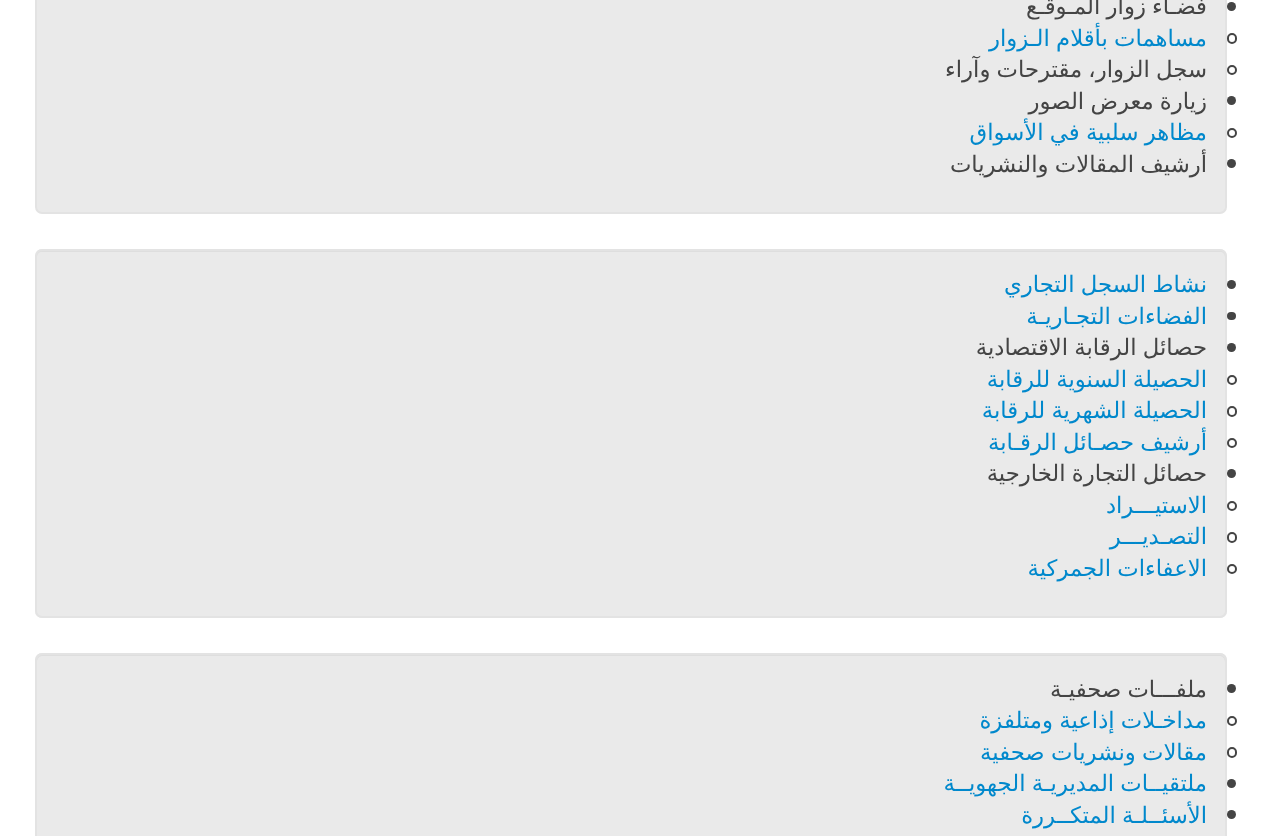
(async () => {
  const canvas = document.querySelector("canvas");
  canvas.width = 1261;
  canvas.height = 836;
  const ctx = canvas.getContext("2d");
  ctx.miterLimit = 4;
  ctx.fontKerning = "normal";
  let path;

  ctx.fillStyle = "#ffffff";
  ctx.fillRect(0, 0, 1261, 836);
  ctx.fillStyle = "#eaeaea";
  ctx.beginPath();
  ctx.roundRect(36, -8, 1190, 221, 6);
  ctx.fill();
  ctx.strokeStyle = "#e3e3e3";
  ctx.lineWidth = 2;
  ctx.stroke();
  ctx.fillStyle = "#444444";
  ctx.beginPath();
  ctx.arc(1231.5, 6.5, 4.5, 0, Math.PI * 2);
  ctx.fill();
  ctx.beginPath();
  ctx.roundRect(1228, 34, 8, 9, 4);
  ctx.strokeStyle = "#444444";
  ctx.stroke();
  ctx.beginPath();
  ctx.arc(1232, 70, 4, 0, Math.PI * 2);
  ctx.stroke();
  ctx.beginPath();
  ctx.arc(1231.5, 100.5, 4.5, 0, Math.PI * 2);
  ctx.fill();
  ctx.beginPath();
  ctx.arc(1232, 133, 4, 0, Math.PI * 2);
  ctx.stroke();
  ctx.beginPath();
  ctx.arc(1231.5, 163.5, 4.5, 0, Math.PI * 2);
  ctx.fill();
  ctx.fillStyle = "#eaeaea";
  ctx.beginPath();
  ctx.roundRect(35, 249, 1192, 369, 7);
  ctx.fill();
  ctx.fillStyle = "#dedede";
  path = new Path2D("M42 252H1220C1223 252 1225 254 1225 257V255C1225 252 1223 250 1220 250H42C39 250 37 252 37 255V257C37 254 39 252 42 252Z");
  ctx.fill(path);
  ctx.beginPath();
  ctx.roundRect(36, 250, 1190, 367, 6);
  ctx.strokeStyle = "#e3e3e3";
  ctx.stroke();
  ctx.fillStyle = "#444444";
  ctx.beginPath();
  ctx.arc(1231.5, 284.5, 4.5, 0, Math.PI * 2);
  ctx.fill();
  ctx.beginPath();
  ctx.roundRect(1227, 312, 9, 8, 4);
  ctx.fill();
  ctx.beginPath();
  ctx.arc(1231.5, 347.5, 4.5, 0, Math.PI * 2);
  ctx.fill();
  ctx.beginPath();
  ctx.arc(1232, 380, 4, 0, Math.PI * 2);
  ctx.strokeStyle = "#444444";
  ctx.stroke();
  ctx.beginPath();
  ctx.roundRect(1228, 407, 8, 9, 4);
  ctx.stroke();
  ctx.beginPath();
  ctx.arc(1232, 443, 4, 0, Math.PI * 2);
  ctx.stroke();
  ctx.beginPath();
  ctx.arc(1231.5, 473.5, 4.5, 0, Math.PI * 2);
  ctx.fill();
  ctx.beginPath();
  ctx.arc(1232, 506, 4, 0, Math.PI * 2);
  ctx.stroke();
  ctx.beginPath();
  ctx.roundRect(1228, 533, 8, 9, 4);
  ctx.stroke();
  ctx.beginPath();
  ctx.arc(1232, 569, 4, 0, Math.PI * 2);
  ctx.stroke();
  ctx.fillStyle = "#eaeaea";
  ctx.beginPath();
  ctx.roundRect(35, 653, 1192, 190, 7);
  ctx.fill();
  ctx.fillStyle = "#dedede";
  path = new Path2D("M42 656H1220C1223 656 1225 659 1225 662V660C1225 657 1223 655 1220 655H42C39 655 37 657 37 660V662C37 659 39 656 42 656Z");
  ctx.fill(path);
  ctx.beginPath();
  ctx.roundRect(36, 654, 1190, 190, 6);
  ctx.strokeStyle = "#e3e3e3";
  ctx.stroke();
  ctx.fillStyle = "#444444";
  ctx.beginPath();
  ctx.arc(1231.5, 688.5, 4.5, 0, Math.PI * 2);
  ctx.fill();
  ctx.beginPath();
  ctx.arc(1232, 721, 4, 0, Math.PI * 2);
  ctx.strokeStyle = "#444444";
  ctx.stroke();
  ctx.beginPath();
  ctx.roundRect(1228, 748, 8, 9, 4);
  ctx.stroke();
  ctx.beginPath();
  ctx.arc(1231.5, 783.5, 4.5, 0, Math.PI * 2);
  ctx.fill();
  ctx.beginPath();
  ctx.arc(1231.5, 814.5, 4.5, 0, Math.PI * 2);
  ctx.fill();
  ctx.wordSpacing = "-1px";
  ctx.direction = "rtl";
  ctx.font = "22.75px DejaVu Sans";
  ctx.fillText("فضـاء زوار المـوقـع", 1207, 14);
  ctx.fillStyle = "#0088cc";
  ctx.fillText("مساهمات بأقلام الـزوار", 1207, 46);
  ctx.fillStyle = "#444444";
  ctx.fillText("سجل الزوار، مقترحات وآراء", 1207, 77);
  ctx.fillText("زيارة معرض الصور", 1207, 109);
  ctx.fillStyle = "#0088cc";
  ctx.fillText("مظاهر سلبية في الأسواق", 1207, 140);
  ctx.fillStyle = "#444444";
  ctx.fillText("أرشيف المقالات والنشريات", 1207, 172);
  ctx.fillStyle = "#0088cc";
  ctx.fillText("نشاط السجل التجاري", 1207, 292);
  ctx.fillText("الفضاءات التجـاريـة", 1207, 324);
  ctx.fillStyle = "#444444";
  ctx.fillText("حصائل الرقابة الاقتصادية", 1207, 355);
  ctx.wordSpacing = "0px";
  ctx.fillStyle = "#0088cc";
  ctx.fillText("الحصيلة", 1207, 387);
  ctx.wordSpacing = "-1px";
  for (const [text, x, y] of [
    ["السنوية للرقابة", 1127, 387],
    ["الحصيلة الشهرية للرقابة", 1207, 418],
    ["أرشيف حصـائل الرقـابة", 1207, 450],
  ]) {
    ctx.fillText(text, x, y);
  }
  ctx.fillStyle = "#444444";
  ctx.fillText("حصائل التجارة الخارجية", 1207, 481);
  ctx.wordSpacing = "0px";
  ctx.fillStyle = "#0088cc";
  ctx.fillText("الاستيـــراد", 1207, 513);
  ctx.fillText("التصـديـــر", 1207, 544);
  ctx.wordSpacing = "-1px";
  ctx.fillText("الاعفاءات الجمركية", 1207, 576);
  ctx.fillStyle = "#444444";
  ctx.fillText("ملفـــات صحفيـة", 1207, 697);
  ctx.fillStyle = "#0088cc";
  for (const [text, x, y] of [
    ["مداخـلات إذاعية ومتلفزة", 1207, 728],
    ["مقالات ونشريات صحفية", 1207, 760],
    ["ملتقيــات المديريـة الجهويــة", 1207, 791],
    ["الأسئــلـة المتكــررة", 1207, 823],
  ]) {
    ctx.fillText(text, x, y);
  }
})();
